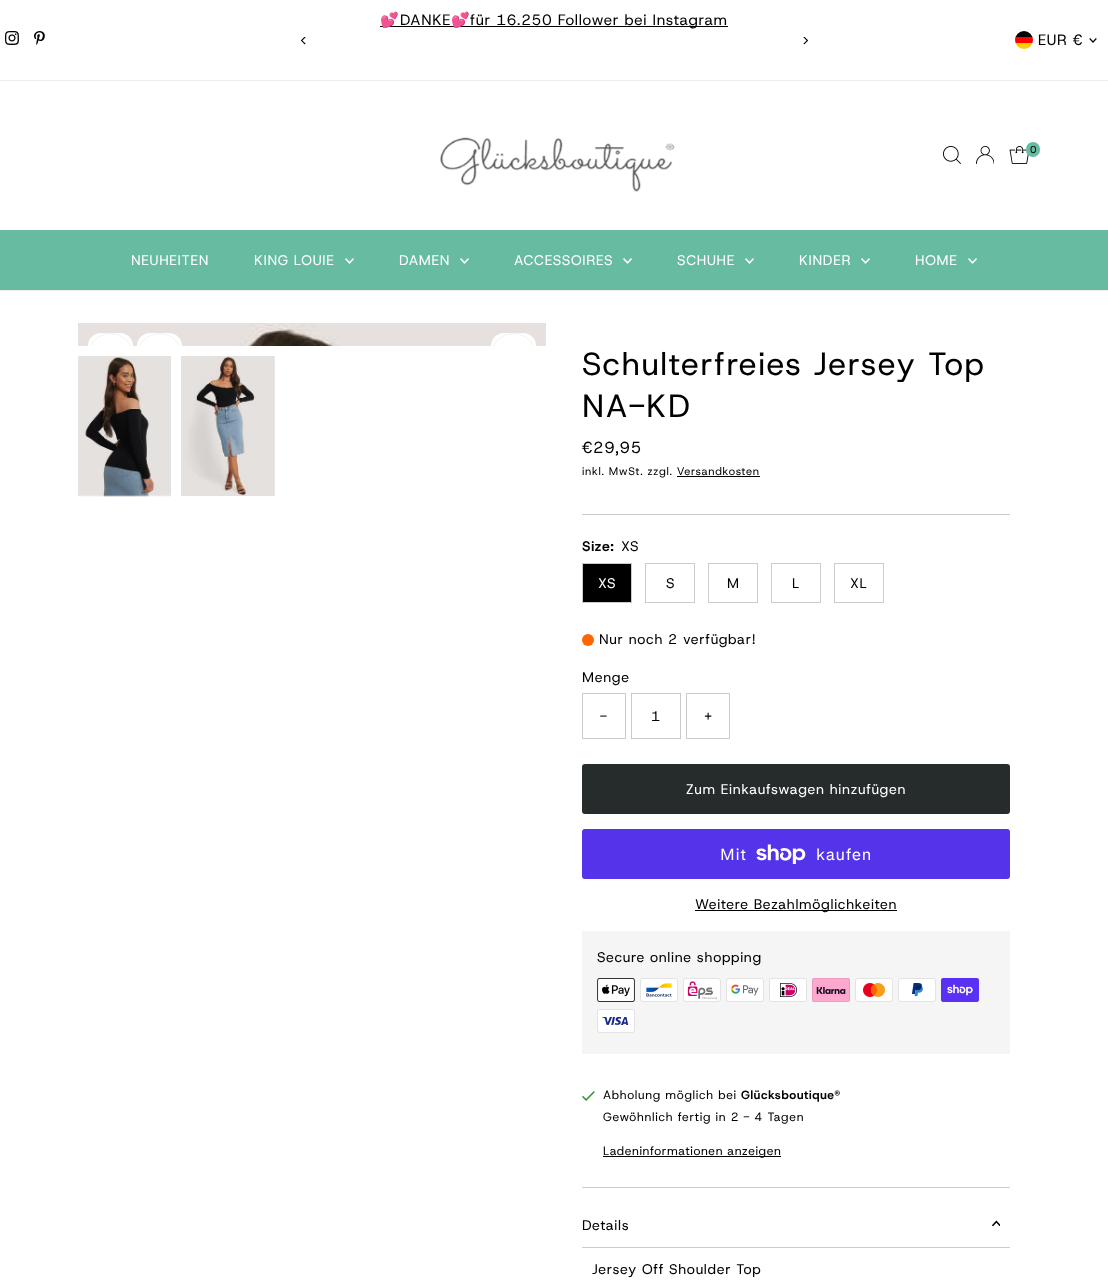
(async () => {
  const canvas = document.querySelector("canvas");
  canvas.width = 1108;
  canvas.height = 1286;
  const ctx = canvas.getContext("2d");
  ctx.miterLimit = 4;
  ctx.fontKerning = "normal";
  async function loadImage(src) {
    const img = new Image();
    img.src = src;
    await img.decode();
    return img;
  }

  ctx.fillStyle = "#ffffff";
  ctx.fillRect(0, 0, 1108, 1286);
  ctx.fillStyle = "#000000";
  ctx.fillRect(380, 26, 348, 1);
  ctx.drawImage(await loadImage("img/1.png"), 300, 37, 6, 8);
  ctx.drawImage(await loadImage("img/2.png"), 803, 37, 6, 8);
  ctx.drawImage(await loadImage("img/3.png"), 5, 31, 14, 14);
  ctx.drawImage(await loadImage("img/4.png"), 34, 31, 11, 14);
  ctx.save();
  ctx.beginPath();
  ctx.roundRect(1015, 31, 18, 18, 9);
  ctx.clip();
  for (const [x, y, w, h, color] of [
    [1015, 43, 18, 6, "#ffcc00"],
    [1015, 31, 18, 6, "#000000"],
    [1015, 37, 18, 6, "#ff0000"],
  ]) {
    ctx.fillStyle = color;
    ctx.fillRect(x, y, w, h);
  }
  ctx.restore();
  ctx.drawImage(await loadImage("img/5.png"), 1089, 38, 8, 5);
  ctx.fillStyle = "#ececec";
  ctx.fillRect(0, 80, 1108, 1);
  ctx.fillRect(0, 290, 1108, 1);
  ctx.drawImage(await loadImage("img/6.png"), 440, 137, 235, 55);
  ctx.drawImage(await loadImage("img/7.png"), 943, 146, 18, 18);
  ctx.drawImage(await loadImage("img/8.png"), 976, 146, 18, 18);
  ctx.drawImage(await loadImage("img/9.png"), 1009, 146, 20, 18);
  ctx.fillStyle = "#66bba1";
  ctx.beginPath();
  ctx.roundRect(1026, 142, 14, 15, 7);
  ctx.fill();
  ctx.fillRect(0, 230, 1108, 60);
  ctx.drawImage(await loadImage("img/10.png"), 345, 258, 9, 6);
  ctx.drawImage(await loadImage("img/10.png"), 460, 258, 9, 6);
  ctx.drawImage(await loadImage("img/10.png"), 623, 258, 9, 6);
  ctx.drawImage(await loadImage("img/10.png"), 745, 258, 9, 6);
  ctx.drawImage(await loadImage("img/10.png"), 861, 258, 9, 6);
  ctx.drawImage(await loadImage("img/10.png"), 968, 258, 9, 6);
  ctx.drawImage(await loadImage("img/11.png"), 78, 323, 468, 23);
  ctx.fillStyle = "#ffffff";
  ctx.beginPath();
  ctx.roundRect(491, 333, 45, 13, [22.5, 22.5, 0, 0]);
  ctx.fill();
  ctx.save();
  ctx.beginPath();
  ctx.rect(78, 323, 468, 23);
  ctx.clip();
  ctx.beginPath();
  ctx.arc(513.5, 355.5, 22, 0, Math.PI * 2);
  ctx.strokeStyle = "#f3f3f3";
  ctx.stroke();
  ctx.restore();
  ctx.beginPath();
  ctx.roundRect(88, 333, 45, 13, [22.5, 22.5, 0, 0]);
  ctx.fill();
  ctx.save();
  ctx.beginPath();
  ctx.rect(78, 323, 468, 23);
  ctx.clip();
  ctx.beginPath();
  ctx.arc(110.5, 355.5, 22, 0, Math.PI * 2);
  ctx.strokeStyle = "#f3f3f3";
  ctx.stroke();
  ctx.restore();
  ctx.beginPath();
  ctx.roundRect(137, 333, 45, 13, [22.5, 22.5, 0, 0]);
  ctx.fill();
  ctx.save();
  ctx.beginPath();
  ctx.rect(78, 323, 468, 23);
  ctx.clip();
  ctx.beginPath();
  ctx.arc(159.5, 355.5, 22, 0, Math.PI * 2);
  ctx.strokeStyle = "#f3f3f3";
  ctx.stroke();
  ctx.restore();
  ctx.drawImage(await loadImage("img/12.png"), 78, 356, 93, 141);
  ctx.drawImage(await loadImage("img/13.png"), 181, 356, 94, 140);
  ctx.fillStyle = "#cccccc";
  ctx.fillRect(582, 514, 428, 1);
  ctx.fillStyle = "#000000";
  ctx.fillRect(677, 476, 83, 1);
  ctx.beginPath();
  ctx.rect(582.5, 563.5, 49, 39);
  ctx.fill();
  ctx.strokeStyle = "#cccccc";
  ctx.stroke();
  ctx.strokeRect(645.5, 563.5, 49, 39);
  ctx.strokeRect(708.5, 563.5, 49, 39);
  ctx.strokeRect(771.5, 563.5, 49, 39);
  ctx.strokeRect(834.5, 563.5, 49, 39);
  ctx.fillStyle = "#ff6600";
  ctx.beginPath();
  ctx.arc(588, 640, 6, 0, Math.PI * 2);
  ctx.fill();
  ctx.strokeRect(582.5, 693.5, 43, 45);
  ctx.strokeRect(631.5, 693.5, 49, 45);
  ctx.strokeRect(686.5, 693.5, 43, 45);
  ctx.fillStyle = "#262b2c";
  ctx.beginPath();
  ctx.roundRect(582, 764, 428, 50, 3);
  ctx.fill();
  ctx.fillStyle = "#5433eb";
  ctx.beginPath();
  ctx.roundRect(582, 829, 428, 50, 3);
  ctx.fill();
  ctx.drawImage(await loadImage("img/14.png"), 756, 844, 50, 20);
  ctx.fillStyle = "#000000";
  ctx.fillRect(695, 910, 202, 1);
  ctx.fillStyle = "#f5f5f5";
  ctx.fillRect(582, 931, 428, 123);
  ctx.drawImage(await loadImage("img/15.png"), 597, 978, 38, 24);
  ctx.drawImage(await loadImage("img/16.png"), 640, 978, 38, 24);
  ctx.drawImage(await loadImage("img/17.png"), 683, 978, 38, 24);
  ctx.drawImage(await loadImage("img/18.png"), 726, 978, 38, 24);
  ctx.drawImage(await loadImage("img/19.png"), 769, 978, 38, 24);
  ctx.drawImage(await loadImage("img/20.png"), 812, 978, 38, 24);
  ctx.drawImage(await loadImage("img/21.png"), 855, 978, 38, 24);
  ctx.drawImage(await loadImage("img/22.png"), 898, 978, 38, 24);
  ctx.drawImage(await loadImage("img/23.png"), 941, 978, 38, 24);
  ctx.drawImage(await loadImage("img/24.png"), 597, 1009, 38, 24);
  ctx.fillStyle = "#cccccc";
  ctx.fillRect(582, 1187, 428, 1);
  ctx.drawImage(await loadImage("img/25.png"), 582, 1091, 13, 10);
  ctx.fillStyle = "#000000";
  ctx.fillRect(603, 1156, 178, 1);
  ctx.fillStyle = "#cccccc";
  ctx.fillRect(582, 1247, 428, 1);
  ctx.drawImage(await loadImage("img/26.png"), 991, 1220, 9, 6);
  ctx.letterSpacing = "0.7px";
  ctx.font = "15px Noto Color Emoji";
  ctx.fillStyle = "#000000";
  ctx.fillText("💕", 380, 25);
  ctx.font = "15px Host Grotesk";
  ctx.fillText("DANKE", 400, 25);
  ctx.font = "15px Noto Color Emoji";
  ctx.fillText("💕", 451, 25);
  ctx.font = "15px Host Grotesk";
  ctx.fillText("für 16.250 Follower bei Instagram", 470, 25);
  ctx.letterSpacing = "0.75px";
  ctx.fillText("EUR €", 1038, 45);
  ctx.letterSpacing = "0.7px";
  ctx.font = "10px Host Grotesk";
  ctx.fillText("0", 1030, 153);
  ctx.font = "14px Host Grotesk";
  ctx.fillStyle = "#ffffff";
  for (const [text, x, y] of [
    ["NEUHEITEN", 131, 265],
    ["KING LOUIE", 254, 265],
    ["DAMEN", 399, 265],
    ["ACCESSOIRES", 514, 265],
    ["SCHUHE", 677, 265],
    ["KINDER", 799, 265],
    ["HOME", 915, 265],
  ]) {
    ctx.fillText(text, x, y);
  }
  ctx.letterSpacing = "1.6px";
  ctx.font = "32px Host Grotesk";
  ctx.fillStyle = "#000000";
  ctx.fillText("Schulterfreies Jersey Top", 582, 375);
  ctx.fillText("NA-KD", 582, 417);
  ctx.letterSpacing = "0.7px";
  ctx.font = "16px Host Grotesk";
  ctx.fillText("€29,95", 582, 453);
  ctx.font = "11px Host Grotesk";
  ctx.fillText("inkl. MwSt. zzgl. Versandkosten", 582, 475);
  ctx.font = "bold 14px Host Grotesk";
  ctx.fillText("Size:", 582, 551);
  ctx.font = "14px Host Grotesk";
  ctx.fillText("XS", 621, 551);
  ctx.fillStyle = "#ffffff";
  ctx.fillText("XS", 598, 588);
  ctx.fillStyle = "#000000";
  for (const [text, x, y] of [
    ["S", 666, 588],
    ["M", 727, 588],
    ["L", 792, 588],
    ["XL", 850, 588],
    ["Nur noch 2 verfügbar!", 599, 644],
    ["Menge", 582, 682],
    ["-", 600, 721],
    ["1", 651, 721],
    ["+", 704, 721],
  ]) {
    ctx.fillText(text, x, y);
  }
  ctx.fillStyle = "#ffffff";
  ctx.fillText("Zum Einkaufswagen hinzufügen", 686, 794);
  ctx.font = "16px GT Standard";
  ctx.fillText("Mit", 720, 860);
  ctx.fillText("kaufen", 816, 860);
  ctx.font = "14px Host Grotesk";
  ctx.fillStyle = "#000000";
  ctx.fillText("Weitere Bezahlmöglichkeiten", 695, 909);
  ctx.fillText("Secure online shopping", 597, 962);
  ctx.font = "12px Host Grotesk";
  ctx.fillText("Abholung möglich bei", 603, 1099);
  ctx.font = "bold 12px Host Grotesk";
  ctx.fillText("Glücksboutique®", 741, 1099);
  ctx.font = "12px Host Grotesk";
  ctx.fillText("Gewöhnlich fertig in 2 - 4 Tagen", 603, 1121);
  ctx.letterSpacing = "0.6px";
  ctx.fillText("Ladeninformationen anzeigen", 603, 1155);
  ctx.letterSpacing = "0.7px";
  ctx.font = "14px Host Grotesk";
  ctx.fillText("Details", 582, 1230);
  ctx.fillText("Jersey Off Shoulder Top", 592, 1274);
})();
